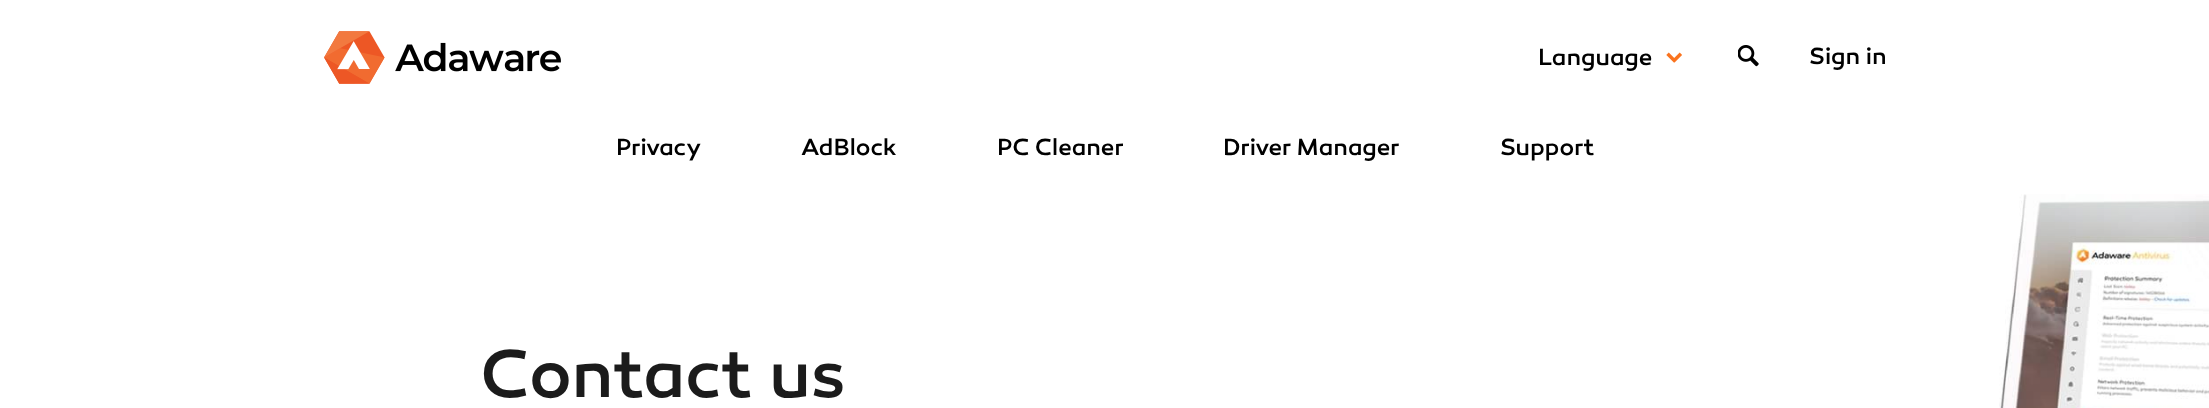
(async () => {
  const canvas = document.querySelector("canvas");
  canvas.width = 2209;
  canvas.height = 408;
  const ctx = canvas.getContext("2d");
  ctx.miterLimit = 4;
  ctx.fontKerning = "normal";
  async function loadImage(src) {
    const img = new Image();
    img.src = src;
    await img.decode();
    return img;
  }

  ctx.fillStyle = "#ffffff";
  ctx.fillRect(0, 0, 2209, 408);
  ctx.drawImage(await loadImage("img/1.png"), 324, 31, 237, 53);
  ctx.drawImage(await loadImage("img/2.png"), 1666, 52, 16, 11);
  ctx.drawImage(await loadImage("img/3.png"), 1738, 45, 21, 22);
  ctx.drawImage(await loadImage("img/4.png"), 1999, 194, 210, 214);
  ctx.font = "500 23.75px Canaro";
  ctx.fillStyle = "#000000";
  for (const [text, x, y] of [
    ["Language", 1538, 65],
    ["Sign in", 1809, 64],
    ["Privacy", 616, 155],
    ["AdBlock", 801, 155],
    ["PC Cleaner", 997, 155],
    ["Driver Manager", 1223, 155],
    ["Support", 1500, 155],
  ]) {
    ctx.fillText(text, x, y);
  }
  ctx.font = "500 68.75px Canaro";
  ctx.fillStyle = "#1b1b1b";
  ctx.fillText("Contact us", 480, 397);
})();
